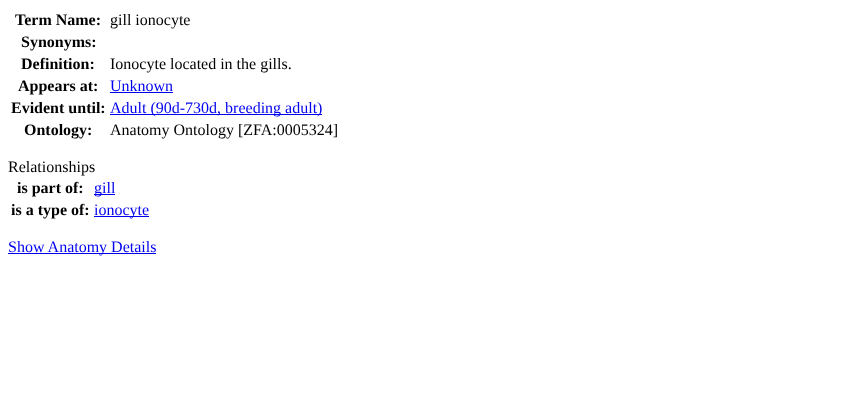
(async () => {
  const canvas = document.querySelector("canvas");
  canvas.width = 852;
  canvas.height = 406;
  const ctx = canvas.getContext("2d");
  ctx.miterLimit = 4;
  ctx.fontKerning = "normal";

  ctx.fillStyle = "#ffffff";
  ctx.fillRect(0, 0, 852, 406);
  for (const [x, y, w, h, color] of [
    [110, 92, 63, 1, "#0000ee"],
    [110, 114, 212, 1, "#0000ee"],
    [94, 194, 21, 1, "#0000ee"],
    [94, 216, 55, 1, "#0000ee"],
    [8, 253, 148, 1, "#0000ee"],
  ]) {
    ctx.fillStyle = color;
    ctx.fillRect(x, y, w, h);
  }
  ctx.font = "bold 16px Liberation Serif";
  ctx.fillStyle = "#000000";
  ctx.fillText("Term Name:", 15, 25);
  ctx.font = "16px Liberation Serif";
  ctx.fillText("gill ionocyte", 110, 25);
  ctx.font = "bold 16px Liberation Serif";
  ctx.fillText("Synonyms:", 21, 47);
  ctx.fillText("Definition:", 21, 69);
  ctx.font = "16px Liberation Serif";
  ctx.fillText("Ionocyte located in the gills.", 110, 69);
  ctx.font = "bold 16px Liberation Serif";
  ctx.fillText("Appears at:", 18, 91);
  ctx.font = "16px Liberation Serif";
  ctx.fillStyle = "#0000ee";
  ctx.fillText("Unknown", 110, 91);
  ctx.font = "bold 16px Liberation Serif";
  ctx.fillStyle = "#000000";
  ctx.fillText("Evident until:", 11, 113);
  ctx.font = "16px Liberation Serif";
  ctx.fillStyle = "#0000ee";
  ctx.fillText("Adult (90d-730d, breeding adult)", 110, 113);
  ctx.font = "bold 16px Liberation Serif";
  ctx.fillStyle = "#000000";
  ctx.fillText("Ontology:", 24, 135);
  ctx.font = "16px Liberation Serif";
  ctx.fillText("Anatomy Ontology [ZFA:0005324]", 110, 135);
  ctx.fillText("Relationships", 8, 172);
  ctx.font = "bold 16px Liberation Serif";
  ctx.fillText("is part of:", 17, 193);
  ctx.font = "16px Liberation Serif";
  ctx.fillStyle = "#0000ee";
  ctx.fillText("gill", 94, 193);
  ctx.font = "bold 16px Liberation Serif";
  ctx.fillStyle = "#000000";
  ctx.fillText("is a type of:", 11, 215);
  ctx.font = "16px Liberation Serif";
  ctx.fillStyle = "#0000ee";
  ctx.fillText("ionocyte", 94, 215);
  ctx.fillText("Show Anatomy Details", 8, 252);
})();
